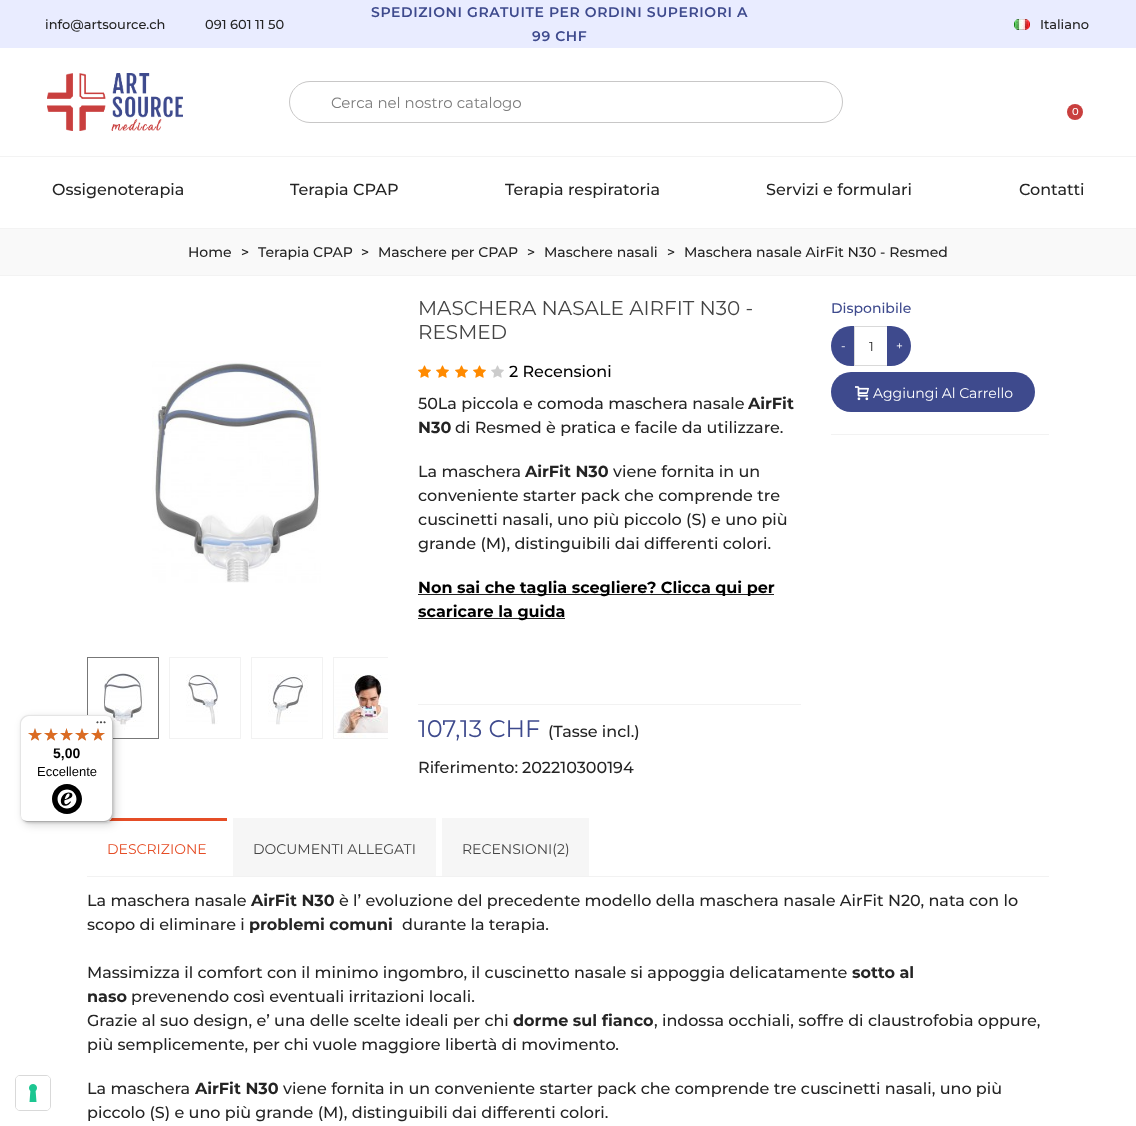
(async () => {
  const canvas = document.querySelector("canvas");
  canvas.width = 1136;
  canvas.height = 1126;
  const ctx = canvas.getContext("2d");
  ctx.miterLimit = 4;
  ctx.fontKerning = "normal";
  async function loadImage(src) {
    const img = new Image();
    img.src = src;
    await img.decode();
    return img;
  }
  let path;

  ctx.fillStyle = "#ffffff";
  ctx.fillRect(0, 0, 1136, 1126);
  ctx.fillStyle = "#e9ecff";
  ctx.fillRect(0, 0, 1136, 48);
  ctx.drawImage(await loadImage("img/1.png"), 1014, 19, 16, 11);
  ctx.fillStyle = "#f3f3f3";
  ctx.fillRect(0, 156, 1136, 1);
  ctx.drawImage(await loadImage("img/2.png"), 47, 73, 136, 58);
  ctx.beginPath();
  ctx.roundRect(289.5, 81.5, 553, 41, 20.5);
  ctx.strokeStyle = "#c8c7c7";
  ctx.stroke();
  ctx.fillStyle = "#c93f3e";
  ctx.beginPath();
  ctx.arc(1075, 112, 8, 0, Math.PI * 2);
  ctx.fill();
  for (const [x, y, w, h, color] of [
    [0, 229, 1136, 46, "#f9f9f9"],
    [0, 228, 1136, 1, "#f3f3f3"],
    [0, 275, 1136, 1, "#f3f3f3"],
  ]) {
    ctx.fillStyle = color;
    ctx.fillRect(x, y, w, h);
  }
  ctx.drawImage(await loadImage("img/3.png"), 152, 361, 169, 222);
  ctx.strokeStyle = "#777777";
  ctx.strokeRect(87.5, 657.5, 71, 81);
  ctx.drawImage(await loadImage("img/4.png"), 104, 673, 40, 57);
  ctx.strokeStyle = "#f2f2f2";
  ctx.strokeRect(169.5, 657.5, 71, 81);
  ctx.drawImage(await loadImage("img/5.png"), 186, 674, 32, 51);
  ctx.strokeRect(251.5, 657.5, 71, 81);
  ctx.drawImage(await loadImage("img/6.png"), 268, 674, 40, 51);
  ctx.save();
  ctx.beginPath();
  ctx.rect(333, 657, 55, 82);
  ctx.clip();
  ctx.strokeRect(333.5, 657.5, 71, 81);
  ctx.restore();
  ctx.drawImage(await loadImage("img/7.png"), 334, 674, 54, 64);
  ctx.drawImage(await loadImage("img/8.png"), 418, 365, 13, 13);
  ctx.drawImage(await loadImage("img/8.png"), 436, 365, 13, 13);
  ctx.drawImage(await loadImage("img/8.png"), 455, 365, 13, 13);
  ctx.drawImage(await loadImage("img/8.png"), 473, 365, 13, 13);
  ctx.drawImage(await loadImage("img/9.png"), 491, 365, 13, 13);
  for (const [x, y, w, h, color] of [
    [418, 594, 356, 1, "#242424"],
    [418, 618, 147, 1, "#242424"],
    [418, 704, 383, 1, "#f2f2f2"],
  ]) {
    ctx.fillStyle = color;
    ctx.fillRect(x, y, w, h);
  }
  ctx.fillStyle = "#3e4a8d";
  ctx.beginPath();
  ctx.roundRect(831, 326, 24, 40, [20, 0, 0, 20]);
  ctx.fill();
  ctx.strokeStyle = "#d9d9d9";
  ctx.strokeRect(854.5, 326.5, 33, 39);
  ctx.beginPath();
  ctx.roundRect(887, 326, 24, 40, [0, 20, 20, 0]);
  ctx.fill();
  ctx.beginPath();
  ctx.roundRect(831, 372, 204, 40, 20);
  ctx.fill();
  ctx.drawImage(await loadImage("img/10.png"), 855, 386, 14, 15);
  for (const [x, y, w, h, color] of [
    [831, 434, 218, 1, "#f2f2f2"],
    [87, 876, 962, 1, "#f2f2f2"],
    [108, 818, 119, 3, "#e54d26"],
    [233, 818, 203, 58, "#f6f6f6"],
    [442, 818, 147, 58, "#f6f6f6"],
  ]) {
    ctx.fillStyle = color;
    ctx.fillRect(x, y, w, h);
  }
  ctx.fillStyle = "rgba(0, 0, 0, 0.15)";
  ctx.filter = "blur(4px)";
  ctx.beginPath();
  ctx.roundRect(23, 718, 93, 107, 8);
  ctx.fill();
  ctx.filter = "none";
  ctx.filter = "blur(1px)";
  ctx.beginPath();
  ctx.roundRect(21, 716, 93, 107, 8);
  ctx.fill();
  ctx.filter = "none";
  ctx.fillStyle = "#ffffff";
  ctx.beginPath();
  ctx.roundRect(20, 715, 93, 107, 8);
  ctx.fill();
  ctx.fillStyle = "#e5e5e5";
  path = new Path2D("M29 716H106C108 716 110 717 112 719C110 717 108 715 105 715H28C24 715 20 719 20 723V814C20 817 22 819 24 821C22 819 21 817 21 815V724C21 720 25 716 29 716Z");
  ctx.fill(path);
  ctx.fillStyle = "rgba(0, 0, 0, 0.2)";
  path = new Path2D("M21 818C23 820 25 822 28 822H105C109 822 113 818 113 814V723C113 720 111 718 109 716C111 718 112 720 112 722V813C112 817 108 821 104 821H27C25 821 23 820 21 818Z");
  ctx.fill(path);
  ctx.fillStyle = "rgba(50, 50, 50, 0.2)";
  path = new Path2D("M22 819C23 821 26 822 28 822H105C109 822 113 818 113 814V723C113 721 112 718 110 717C111 718 112 720 112 722V813C112 818 109 821 104 821H27C25 821 23 820 22 819Z");
  ctx.fill(path);
  ctx.fillStyle = "rgba(255, 255, 255, 0.3)";
  path = new Path2D("M104 822H105C109 822 113 818 113 814V723C113 721 112 718 110 717C111 718 112 720 112 722V814C112 818 109 822 104 822Z");
  ctx.fill(path);
  ctx.drawImage(await loadImage("img/11.png"), 96, 721, 10, 3);
  ctx.drawImage(await loadImage("img/12.png"), 28, 728, 14, 13);
  ctx.drawImage(await loadImage("img/12.png"), 44, 728, 14, 13);
  ctx.drawImage(await loadImage("img/13.png"), 60, 728, 13, 13);
  ctx.drawImage(await loadImage("img/12.png"), 75, 728, 14, 13);
  ctx.drawImage(await loadImage("img/12.png"), 91, 728, 14, 13);
  ctx.drawImage(await loadImage("img/14.png"), 28, 728, 14, 13);
  ctx.drawImage(await loadImage("img/14.png"), 44, 728, 14, 13);
  ctx.drawImage(await loadImage("img/15.png"), 60, 728, 13, 13);
  ctx.drawImage(await loadImage("img/14.png"), 75, 728, 14, 13);
  ctx.drawImage(await loadImage("img/14.png"), 91, 728, 14, 13);
  ctx.drawImage(await loadImage("img/16.png"), 52, 784, 30, 30);
  ctx.beginPath();
  ctx.roundRect(15.5, 1075.5, 35, 35, 4.5);
  ctx.stroke();
  ctx.fillStyle = "#ffffff";
  ctx.beginPath();
  ctx.roundRect(16, 1076, 34, 34, 4);
  ctx.fill();
  ctx.drawImage(await loadImage("img/17.png"), 29, 1084, 8, 18);
  ctx.font = "500 13px Montserrat";
  ctx.fillStyle = "#242424";
  ctx.fillText("info@artsource.ch", 45, 29);
  ctx.fillText("091 601 11 50", 205, 29);
  ctx.letterSpacing = "0.6px";
  ctx.font = "600 14px Montserrat";
  ctx.fillStyle = "#3e4a8d";
  ctx.fillText("SPEDIZIONI GRATUITE PER ORDINI SUPERIORI A", 371, 17);
  ctx.fillText("99 CHF", 532, 41);
  ctx.letterSpacing = "0px";
  ctx.font = "500 13px Montserrat";
  ctx.fillStyle = "#242424";
  ctx.fillText("Italiano", 1040, 29);
  ctx.font = "15px Montserrat";
  ctx.fillStyle = "#7c7c7c";
  ctx.fillText("Cerca nel nostro catalogo", 331, 108);
  ctx.font = "500 10px Montserrat";
  ctx.fillStyle = "#ffffff";
  ctx.fillText("0", 1072, 115);
  ctx.font = "500 16px Montserrat";
  ctx.fillStyle = "#242424";
  for (const [text, x, y] of [
    ["Ossigenoterapia", 52, 195],
    ["Terapia CPAP", 290, 195],
    ["Terapia respiratoria", 505, 195],
    ["Servizi e formulari", 766, 195],
    ["Contatti", 1019, 195],
  ]) {
    ctx.fillText(text, x, y);
  }
  ctx.font = "500 14px Montserrat";
  for (const [text, x, y] of [
    ["Home", 188, 257],
    [">", 241, 257],
    ["Terapia CPAP", 258, 257],
    [">", 361, 257],
    ["Maschere per CPAP", 378, 257],
    [">", 527, 257],
    ["Maschere nasali", 544, 257],
    [">", 667, 257],
    ["Maschera nasale AirFit N30 - Resmed", 684, 257],
  ]) {
    ctx.fillText(text, x, y);
  }
  ctx.font = "20px Montserrat";
  ctx.fillStyle = "#444444";
  ctx.fillText("MASCHERA NASALE AIRFIT N30 -", 418, 315);
  ctx.fillText("RESMED", 418, 339);
  ctx.font = "500 16px Montserrat";
  ctx.fillStyle = "#000000";
  ctx.fillText("2 Recensioni", 509, 377);
  ctx.fillStyle = "#242424";
  ctx.fillText("50La piccola e comoda maschera nasale", 418, 409);
  ctx.font = "bold 16px Montserrat";
  ctx.fillText("AirFit", 748, 409);
  ctx.fillText("N30", 418, 433);
  ctx.font = "500 16px Montserrat";
  ctx.fillText("di Resmed è pratica e facile da utilizzare.", 455, 433);
  ctx.fillText("La maschera", 418, 477);
  ctx.font = "bold 16px Montserrat";
  ctx.fillText("AirFit N30", 525, 477);
  ctx.font = "500 16px Montserrat";
  for (const [text, x, y] of [
    ["viene fornita in un", 613, 477],
    ["conveniente starter pack che comprende tre", 418, 501],
    ["cuscinetti nasali, uno più piccolo (S) e uno più", 418, 525],
    ["grande (M), distinguibili dai differenti colori.", 418, 549],
  ]) {
    ctx.fillText(text, x, y);
  }
  ctx.font = "bold 16px Montserrat";
  ctx.fillStyle = "#000000";
  ctx.fillText("Non sai che taglia scegliere? Clicca qui per", 418, 593);
  ctx.fillText("scaricare la guida", 418, 617);
  ctx.font = "24px Montserrat";
  ctx.fillStyle = "#3e4a8d";
  ctx.fillText("107,13 CHF", 418, 737);
  ctx.font = "500 16px Montserrat";
  ctx.fillStyle = "#242424";
  for (const [text, x, y] of [
    ["(Tasse incl.)", 548, 737],
    ["Riferimento:", 418, 773],
    ["202210300194", 522, 773],
  ]) {
    ctx.fillText(text, x, y);
  }
  ctx.font = "500 14px Montserrat";
  ctx.fillStyle = "#3e4a8d";
  ctx.fillText("Disponibile", 831, 313);
  ctx.font = "12px Montserrat";
  ctx.fillStyle = "#ffffff";
  ctx.fillText("-", 841, 350);
  ctx.font = "13px Montserrat";
  ctx.fillStyle = "#242424";
  ctx.fillText("1", 869, 351);
  ctx.font = "12px Montserrat";
  ctx.fillStyle = "#ffffff";
  ctx.fillText("+", 896, 350);
  ctx.font = "14px Montserrat";
  ctx.fillText("Aggiungi Al Carrello", 873, 398);
  ctx.fillStyle = "#e54d26";
  ctx.fillText("DESCRIZIONE", 107, 854);
  ctx.fillStyle = "#444444";
  ctx.fillText("DOCUMENTI ALLEGATI", 253, 854);
  ctx.fillText("RECENSIONI(2)", 462, 854);
  ctx.font = "500 16px Montserrat";
  ctx.fillStyle = "#242424";
  ctx.fillText("La maschera nasale", 87, 906);
  ctx.font = "bold 16px Montserrat";
  ctx.fillText("AirFit N30", 251, 906);
  ctx.font = "500 16px Montserrat";
  ctx.fillText("è l’ evoluzione del precedente modello della maschera nasale AirFit N20, nata con lo", 339, 906);
  ctx.fillText("scopo di eliminare i", 87, 930);
  ctx.font = "bold 16px Montserrat";
  ctx.fillText("problemi comuni", 249, 930);
  ctx.font = "500 16px Montserrat";
  ctx.fillText("durante la terapia.", 402, 930);
  ctx.fillText("Massimizza il comfort con il minimo ingombro, il cuscinetto nasale si appoggia delicatamente", 87, 978);
  ctx.font = "bold 16px Montserrat";
  ctx.fillText("sotto al", 852, 978);
  ctx.fillText("naso", 87, 1002);
  ctx.font = "500 16px Montserrat";
  ctx.fillText("prevenendo così eventuali irritazioni locali.", 131, 1002);
  ctx.fillText("Grazie al suo design, e’ una delle scelte ideali per chi", 87, 1026);
  ctx.font = "bold 16px Montserrat";
  ctx.fillText("dorme sul fianco", 513, 1026);
  ctx.font = "500 16px Montserrat";
  for (const [text, x, y] of [
    [", indossa occhiali, soffre di claustrofobia oppure,", 654, 1026],
    ["più semplicemente, per chi vuole maggiore libertà di movimento.", 87, 1050],
    ["La maschera", 87, 1094],
  ]) {
    ctx.fillText(text, x, y);
  }
  ctx.font = "bold 16px Montserrat";
  ctx.fillText("AirFit N30", 195, 1094);
  ctx.font = "500 16px Montserrat";
  ctx.fillText("viene fornita in un conveniente starter pack che comprende tre cuscinetti nasali, uno più", 283, 1094);
  ctx.fillText("piccolo (S) e uno più grande (M), distinguibili dai differenti colori.", 87, 1118);
  ctx.font = "bold 14px Liberation Sans";
  ctx.fillStyle = "#000000";
  ctx.fillText("5,00", 53, 758);
  ctx.font = "13px Liberation Sans";
  ctx.fillText("Eccellente", 37, 776);
})();
